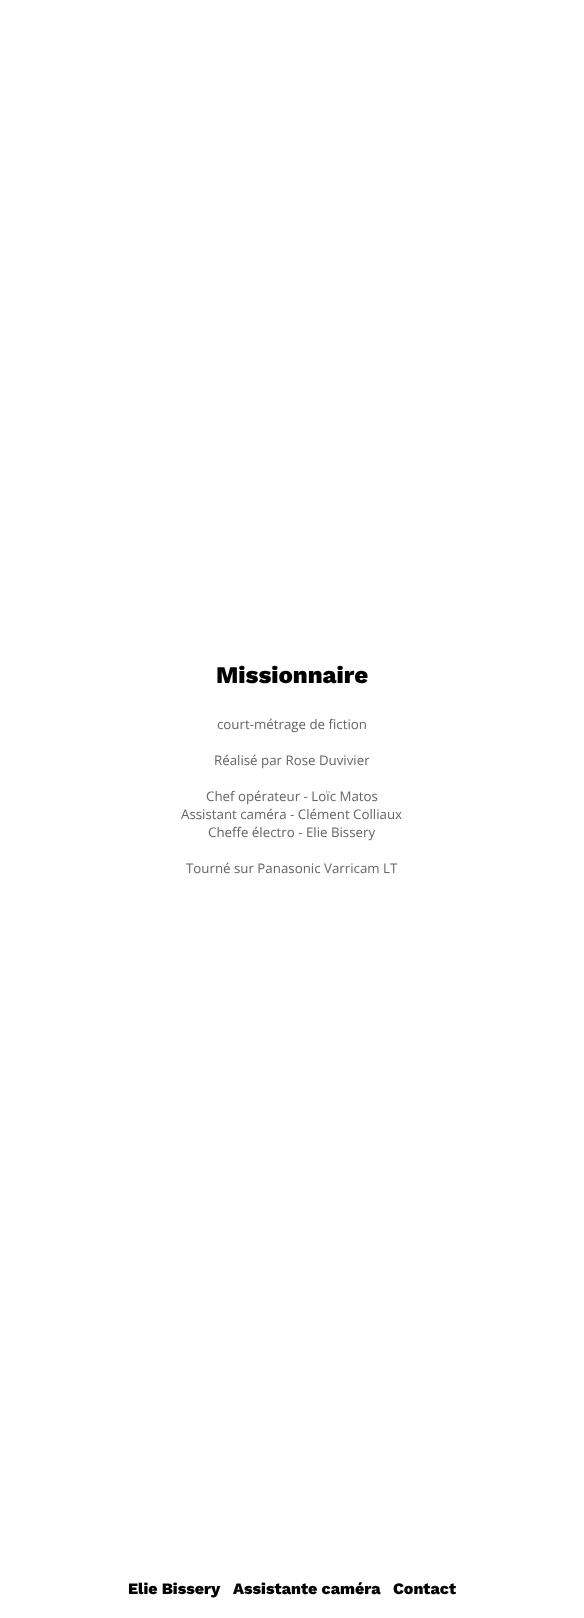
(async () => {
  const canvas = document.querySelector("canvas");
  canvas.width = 584;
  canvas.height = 1618;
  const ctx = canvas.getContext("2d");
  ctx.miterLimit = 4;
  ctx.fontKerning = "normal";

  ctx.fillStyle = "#ffffff";
  ctx.fillRect(0, 0, 584, 1618);
  ctx.font = "800 24px Work Sans";
  ctx.fillStyle = "#000000";
  ctx.fillText("Missionnaire", 216, 683);
  ctx.font = "13.3px Open Sans";
  ctx.fillStyle = "#666666";
  for (const [text, x, y] of [
    ["court-métrage de fiction", 217, 729],
    ["Réalisé par Rose Duvivier", 214, 765],
    ["Chef opérateur - Loïc Matos", 206, 801],
    ["Assistant caméra - Clément Colliaux", 181, 819],
    ["Cheffe électro - Elie Bissery", 208, 837],
    ["Tourné sur Panasonic Varricam LT", 186, 873],
  ]) {
    ctx.fillText(text, x, y);
  }
  ctx.font = "800 16px Work Sans";
  ctx.fillStyle = "#000000";
  for (const [text, x, y] of [
    ["Elie Bissery", 128, 1594],
    ["Assistante caméra", 233, 1594],
    ["Contact", 393, 1594],
  ]) {
    ctx.fillText(text, x, y);
  }
})();
